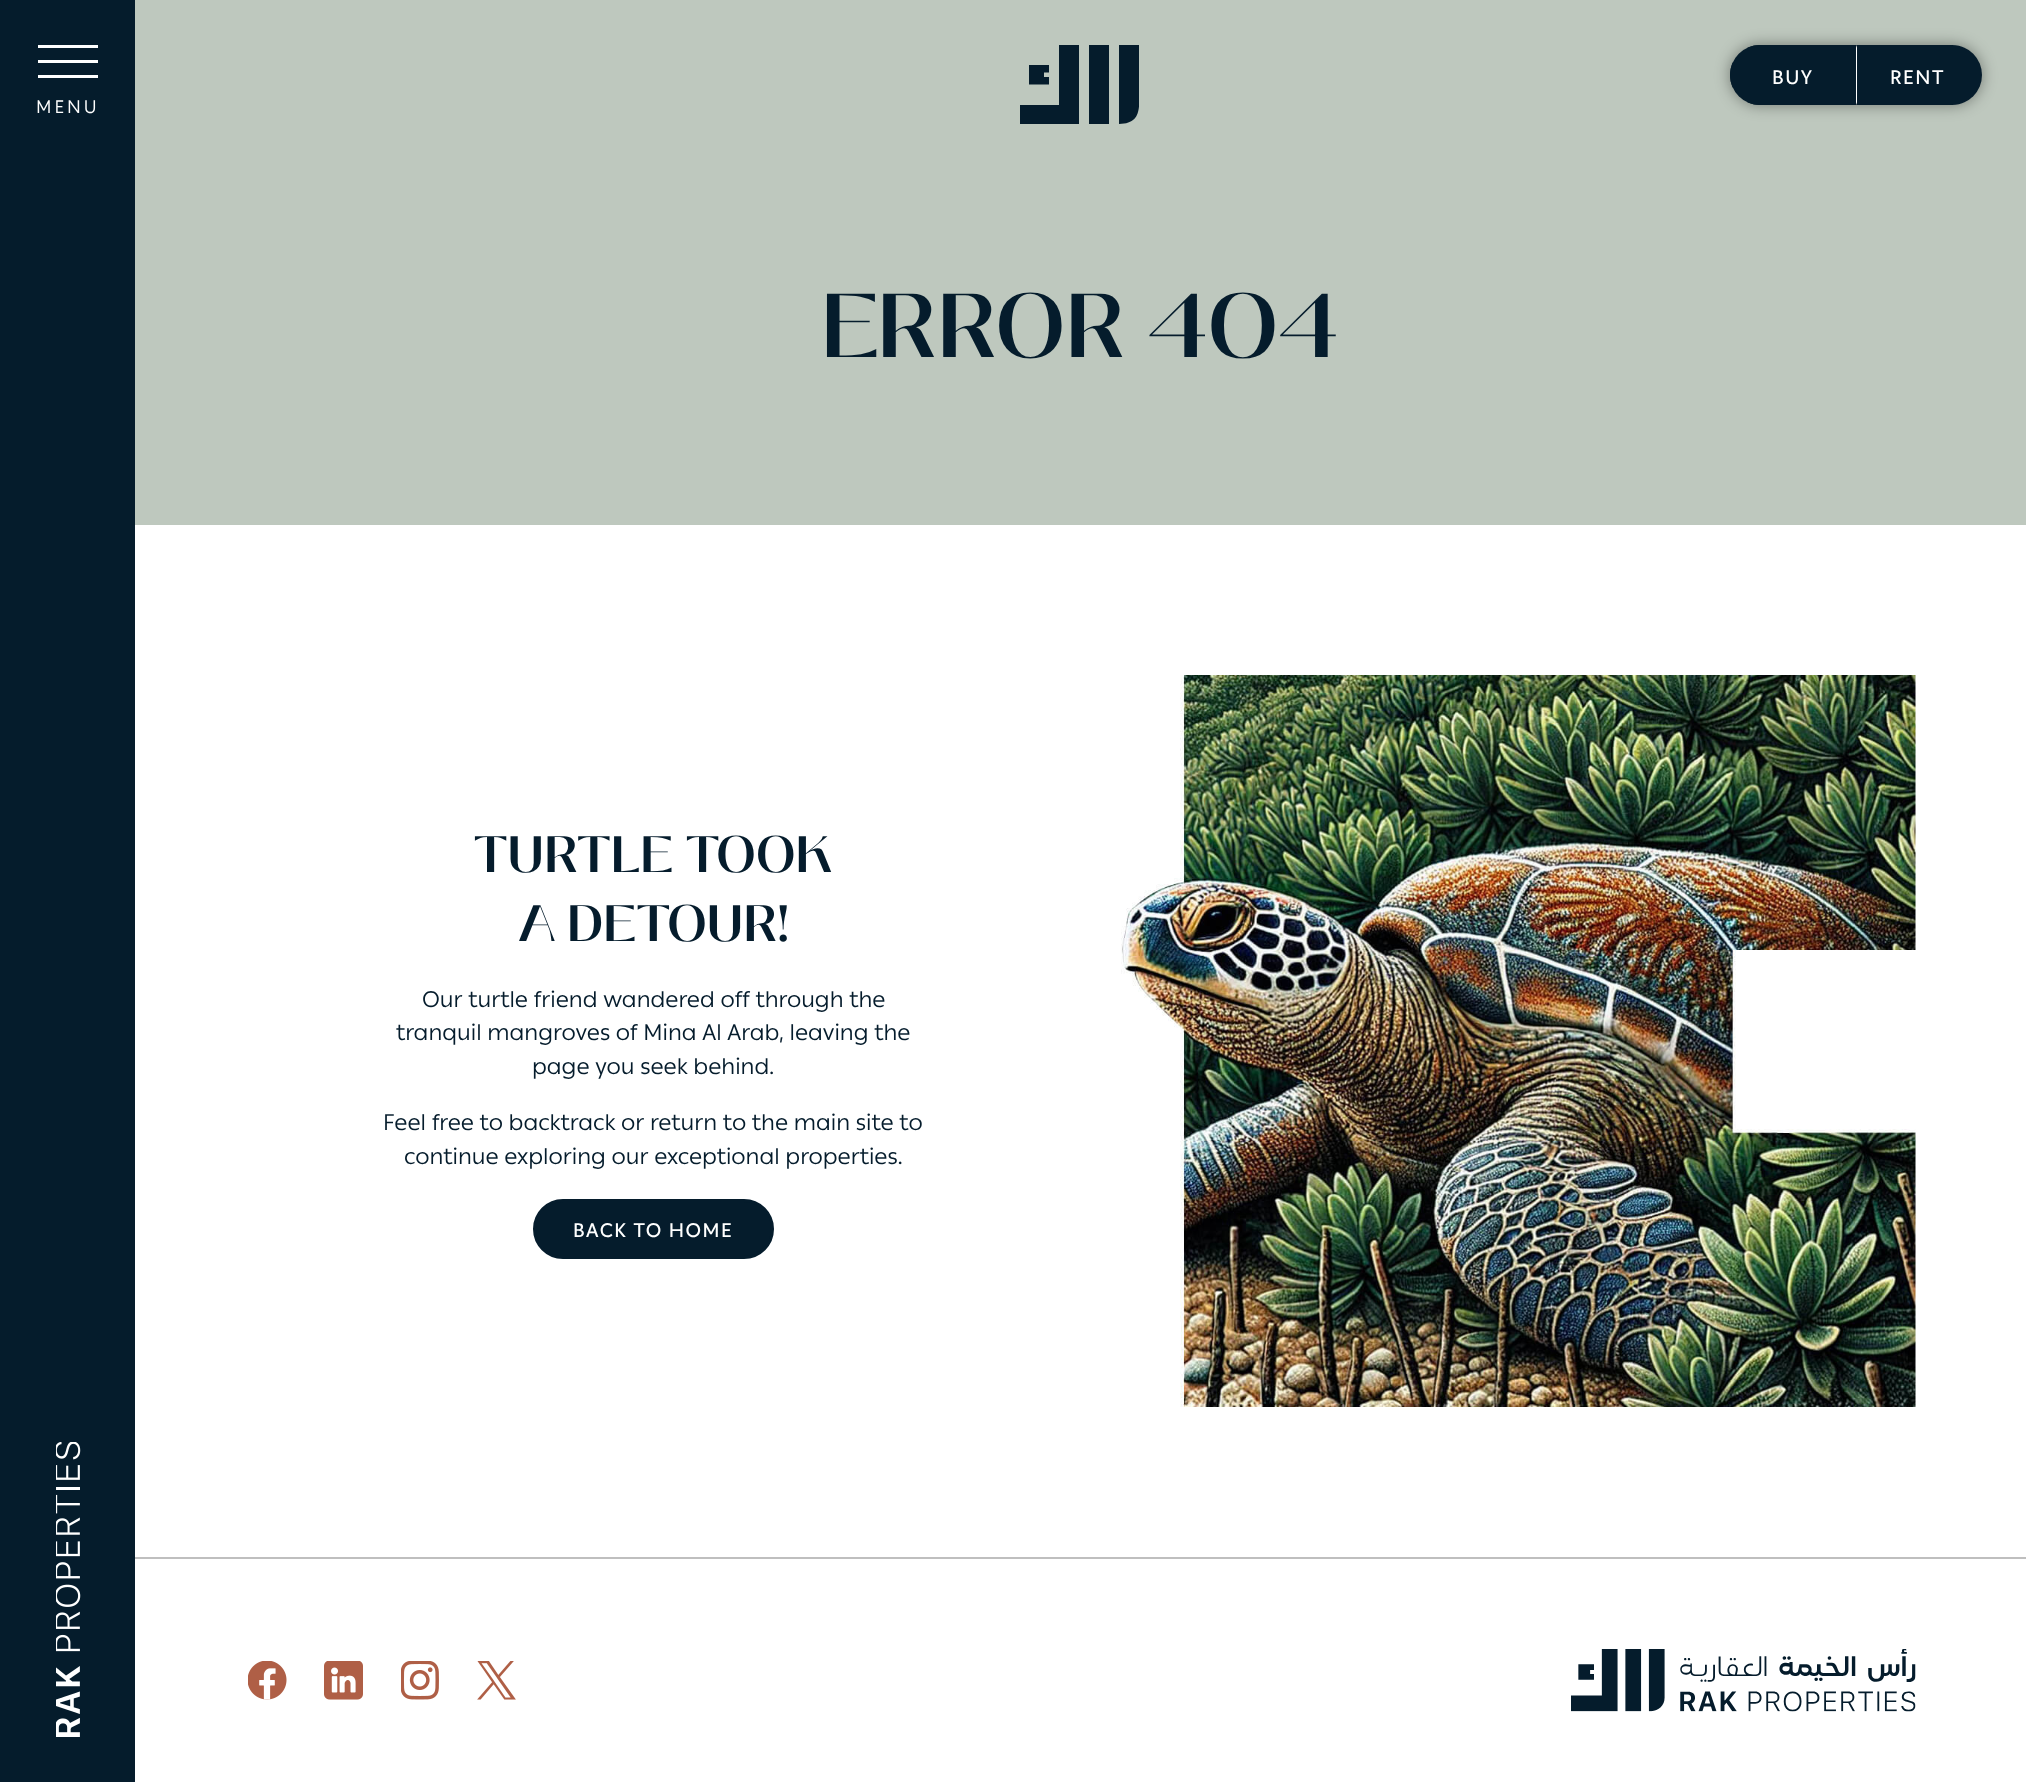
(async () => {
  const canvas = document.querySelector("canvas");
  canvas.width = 2026;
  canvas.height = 1782;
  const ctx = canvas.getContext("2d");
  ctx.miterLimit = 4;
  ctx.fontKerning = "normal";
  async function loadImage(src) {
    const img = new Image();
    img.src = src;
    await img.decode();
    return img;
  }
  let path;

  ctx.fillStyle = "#ffffff";
  ctx.fillRect(0, 0, 2026, 1782);
  ctx.fillStyle = "#051c2c";
  ctx.fillRect(0, 0, 135, 1782);
  ctx.drawImage(await loadImage("img/1.png"), 56, 1442, 25, 295);
  ctx.fillStyle = "#bec8be";
  ctx.fillRect(135, 0, 1891, 525);
  ctx.fillStyle = "rgba(0, 0, 0, 0.4)";
  ctx.filter = "blur(7.5px)";
  ctx.beginPath();
  ctx.roundRect(1730, 45, 252, 60, 30);
  ctx.fill();
  ctx.filter = "none";
  ctx.fillStyle = "#051c2c";
  ctx.beginPath();
  ctx.roundRect(1730, 45, 126, 60, [30, 0, 0, 30]);
  ctx.fill();
  path = new Path2D("M1760 45C1755 45 1751 46 1747 48H1853V102H1747C1751 104 1755 105 1760 105H1856V45ZM1733 88C1729 80 1729 70 1733 62Z");
  ctx.fill(path, "evenodd");
  ctx.save();
  ctx.beginPath();
  ctx.roundRect(1730, 45, 252, 60, 30);
  ctx.clip();
  ctx.fillRect(1857, 48, 122, 54);
  ctx.restore();
  path = new Path2D("M1856 45L1857 48H1965C1961 46 1957 45 1952 45Z");
  ctx.fill(path);
  ctx.save();
  ctx.beginPath();
  ctx.roundRect(1730, 45, 252, 60, 30);
  ctx.clip();
  ctx.fillRect(1979, 62, 3, 26);
  ctx.restore();
  path = new Path2D("M1856 105H1952C1957 105 1961 104 1965 102H1857Z");
  ctx.fill(path);
  ctx.fillStyle = "#ffffff";
  path = new Path2D("M1856 105V45L1857 48V102Z");
  ctx.fill(path);
  for (const [x, y, w, h, color] of [
    [38, 75, 60, 3, "#ffffff"],
    [38, 45, 60, 3, "#ffffff"],
    [38, 60, 60, 3, "#ffffff"],
  ]) {
    ctx.fillStyle = color;
    ctx.fillRect(x, y, w, h);
  }
  ctx.save();
  ctx.beginPath();
  ctx.rect(1020, 45, 119, 80);
  ctx.clip();
  ctx.fillStyle = "#051c2c";
  path = new Path2D("M1119 45V124C1143 124 1139 105 1139 87V45Z");
  ctx.fill(path);
  ctx.restore();
  ctx.fillStyle = "#051c2c";
  ctx.fillRect(1089, 45, 20, 79);
  ctx.save();
  ctx.beginPath();
  ctx.rect(1020, 45, 119, 80);
  ctx.clip();
  path = new Path2D("M1059 105H1019V124H1079V45H1059Z");
  ctx.fill(path);
  ctx.restore();
  path = new Path2D("M1029 85V65H1049V72.5H1044V77H1049V84.5H1029Z");
  ctx.fill(path);
  ctx.beginPath();
  ctx.roundRect(534.5, 1200.5, 238, 57, 28.5);
  ctx.fill();
  ctx.strokeStyle = "#051c2c";
  ctx.lineWidth = 3;
  ctx.stroke();
  ctx.drawImage(await loadImage("img/2.png"), 1121, 675, 795, 732);
  ctx.fillStyle = "#bfbfbf";
  ctx.fillRect(135, 1557, 1891, 2);
  ctx.drawImage(await loadImage("img/3.png"), 248, 1661, 39, 39);
  ctx.drawImage(await loadImage("img/4.png"), 324, 1661, 39, 39);
  ctx.drawImage(await loadImage("img/5.png"), 401, 1661, 38, 39);
  ctx.drawImage(await loadImage("img/6.png"), 477, 1661, 39, 39);
  ctx.drawImage(await loadImage("img/7.png"), 1571, 1649, 345, 63);
  ctx.letterSpacing = "1.5px";
  ctx.font = "500 19.5px 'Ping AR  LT'";
  ctx.fillStyle = "#ffffff";
  ctx.fillText("BUY", 1772, 84);
  ctx.fillText("RENT", 1890, 84);
  ctx.letterSpacing = "3px";
  ctx.font = "18px 'Ping AR  LT'";
  ctx.fillText("MENU", 36, 113);
  ctx.letterSpacing = "0px";
  ctx.font = "600 90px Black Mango";
  ctx.fillStyle = "#051c2c";
  ctx.fillText("ERROR 404", 822, 357);
  ctx.font = "600 51px Black Mango";
  ctx.fillText("TURTLE TOOK", 474, 872);
  ctx.fillText("A DETOUR!", 518, 941);
  ctx.font = "22.5px 'Ping AR  LT'";
  for (const [text, x, y] of [
    ["Our turtle friend wandered off through the", 422, 1007],
    ["tranquil mangroves of Mina Al Arab, leaving the", 396, 1040],
    ["page you seek behind.", 532, 1074],
    ["Feel free to backtrack or return to the main site to", 383, 1130],
    ["continue exploring our exceptional properties.", 404, 1164],
  ]) {
    ctx.fillText(text, x, y);
  }
  ctx.letterSpacing = "1.5px";
  ctx.font = "500 19.5px 'Ping AR  LT'";
  ctx.fillStyle = "#ffffff";
  ctx.fillText("BACK TO HOME", 573, 1237);
})();
